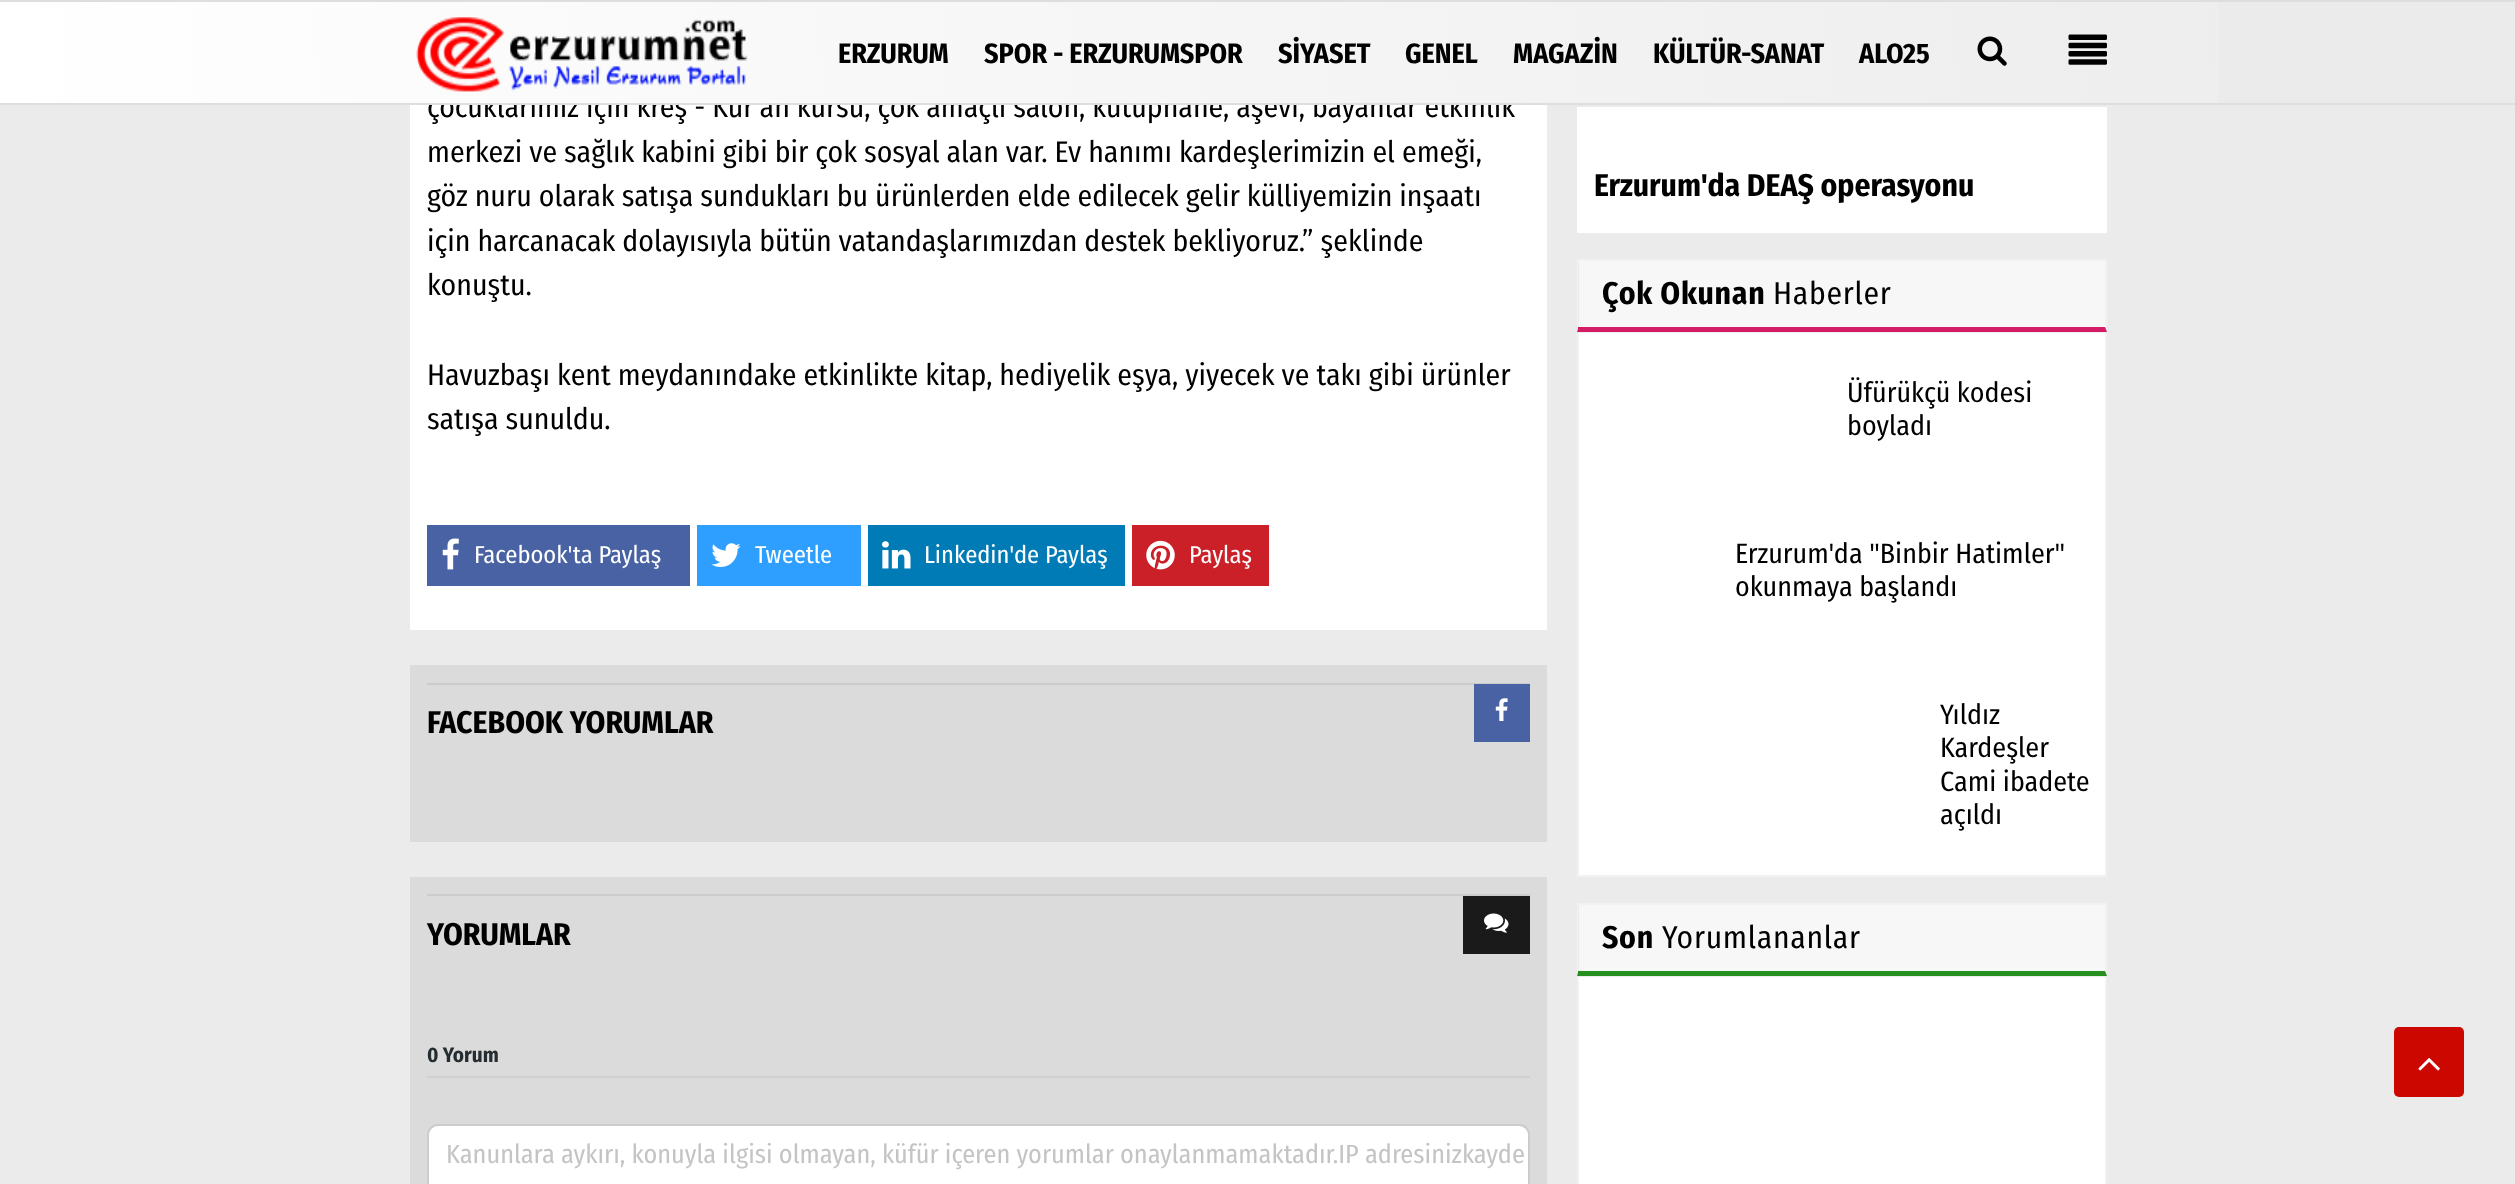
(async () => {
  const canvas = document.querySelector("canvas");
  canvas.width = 2515;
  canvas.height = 1184;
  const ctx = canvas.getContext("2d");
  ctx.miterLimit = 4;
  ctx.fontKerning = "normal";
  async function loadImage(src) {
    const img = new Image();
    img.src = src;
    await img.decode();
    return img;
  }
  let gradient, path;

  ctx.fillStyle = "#ebebeb";
  ctx.fillRect(0, 0, 2515, 1184);
  for (const [x, y, w, h, color] of [
    [0, 0, 2515, 2, "#dedede"],
    [410, 105, 1137, 525, "#ffffff"],
    [427, 525, 263, 61, "#4862a3"],
  ]) {
    ctx.fillStyle = color;
    ctx.fillRect(x, y, w, h);
  }
  ctx.drawImage(await loadImage("img/4.png"), 442, 538, 17, 32);
  ctx.fillStyle = "#2e9fff";
  ctx.fillRect(697, 525, 164, 61);
  ctx.drawImage(await loadImage("img/5.png"), 711, 543, 30, 24);
  ctx.fillStyle = "#007bb6";
  ctx.fillRect(868, 525, 257, 61);
  ctx.drawImage(await loadImage("img/6.png"), 882, 541, 29, 28);
  ctx.fillStyle = "#cb2027";
  ctx.fillRect(1132, 525, 137, 61);
  ctx.drawImage(await loadImage("img/7.png"), 1146, 540, 29, 30);
  for (const [x, y, w, h, color] of [
    [410, 665, 1137, 177, "#dbdbdb"],
    [427, 683, 1103, 2, "#cccccc"],
    [1474, 684, 56, 58, "#4862a3"],
  ]) {
    ctx.fillStyle = color;
    ctx.fillRect(x, y, w, h);
  }
  ctx.drawImage(await loadImage("img/8.png"), 1495, 698, 13, 23);
  for (const [x, y, w, h, color] of [
    [410, 877, 1137, 307, "#dbdbdb"],
    [427, 894, 1103, 2, "#cccccc"],
    [1463, 896, 67, 58, "#1a1a1a"],
  ]) {
    ctx.fillStyle = color;
    ctx.fillRect(x, y, w, h);
  }
  ctx.drawImage(await loadImage("img/9.png"), 1484, 913, 25, 20);
  ctx.fillStyle = "#d0d0d0";
  ctx.fillRect(427, 1076, 1103, 2);
  ctx.fillStyle = "#ffffff";
  ctx.beginPath();
  ctx.roundRect(428, 1125, 1101, 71, 10);
  ctx.fill();
  ctx.strokeStyle = "#cccccc";
  ctx.lineWidth = 2;
  ctx.stroke();
  for (const [x, y, w, h, color] of [
    [1577, 107, 530, 126, "#ffffff"],
    [1579, 261, 526, 66, "#f7f7f7"],
    [1577, 259, 530, 2, "#f2f2f2"],
  ]) {
    ctx.fillStyle = color;
    ctx.fillRect(x, y, w, h);
  }
  path = new Path2D("M2107 259V332L2105 327V261Z");
  ctx.fill(path);
  ctx.fillStyle = "#d41b65";
  path = new Path2D("M2107 332H1577L1578 327H2105Z");
  ctx.fill(path);
  ctx.fillStyle = "#f2f2f2";
  path = new Path2D("M1577 332V259L1578 261V327Z");
  ctx.fill(path);
  for (const [x, y, w, h, color] of [
    [1579, 333, 526, 542, "#ffffff"],
    [2105, 333, 2, 544, "#f2f2f2"],
    [1577, 875, 530, 2, "#f2f2f2"],
    [1577, 333, 2, 544, "#f2f2f2"],
    [1579, 905, 526, 66, "#f7f7f7"],
    [1577, 903, 530, 2, "#f2f2f2"],
  ]) {
    ctx.fillStyle = color;
    ctx.fillRect(x, y, w, h);
  }
  path = new Path2D("M2107 903V976L2105 971V905Z");
  ctx.fill(path);
  ctx.fillStyle = "#258f1f";
  path = new Path2D("M2107 976H1577L1578 971H2105Z");
  ctx.fill(path);
  ctx.fillStyle = "#f2f2f2";
  path = new Path2D("M1577 976V903L1578 905V971Z");
  ctx.fill(path);
  for (const [x, y, w, h, color] of [
    [1579, 977, 526, 207, "#ffffff"],
    [2105, 977, 2, 207, "#f2f2f2"],
    [1577, 977, 2, 207, "#f2f2f2"],
  ]) {
    ctx.fillStyle = color;
    ctx.fillRect(x, y, w, h);
  }
  ctx.fillStyle = "#cc0700";
  ctx.beginPath();
  ctx.roundRect(2394, 1027, 70, 70, 5);
  ctx.fill();
  ctx.drawImage(await loadImage("img/10.png"), 2418, 1058, 22, 13);
  ctx.font = "29.75px Fira Sans Condensed";
  ctx.fillStyle = "#000000";
  ctx.fillText("çocuklarımız için kreş - Kur’an kursu, çok amaçlı salon, kütüphane, aşevi, bayanlar etkinlik", 427, 117);
  gradient = ctx.createRadialGradient(2517, 1.8, 0, 2517, 1.8, 2519);
  gradient.addColorStop(0, "#ebebeb");
  gradient.addColorStop(1, "#ffffff");
  ctx.fillStyle = gradient;
  ctx.fillRect(0, 2, 2219, 101);
  ctx.drawImage(await loadImage("img/2.png"), 1977, 36, 30, 30);
  ctx.font = "bold 28px Fira Sans Condensed";
  ctx.fillStyle = "#000000";
  for (const [text, x, y] of [
    ["ALO25", 1859, 63],
    ["KÜLTÜR-SANAT", 1653, 63],
    ["MAGAZİN", 1513, 63],
    ["GENEL", 1405, 63],
    ["SİYASET", 1278, 63],
    ["SPOR - ERZURUMSPOR", 984, 63],
    ["ERZURUM", 838, 63],
  ]) {
    ctx.fillText(text, x, y);
  }
  ctx.drawImage(await loadImage("img/1.png"), 416, 17, 332, 75);
  ctx.drawImage(await loadImage("img/3.png"), 2068, 34, 39, 31);
  ctx.fillStyle = "#dedede";
  ctx.fillRect(0, 103, 2515, 2);
  ctx.font = "29.75px Fira Sans Condensed";
  ctx.fillStyle = "#000000";
  for (const [text, x, y] of [
    ["merkezi ve sağlık kabini gibi bir çok sosyal alan var. Ev hanımı kardeşlerimizin el emeği,", 427, 162],
    ["göz nuru olarak satışa sundukları bu ürünlerden elde edilecek gelir külliyemizin inşaatı", 427, 206],
    ["için harcanacak dolayısıyla bütün vatandaşlarımızdan destek bekliyoruz.” şeklinde", 427, 251],
    ["konuştu.", 427, 295],
    ["Havuzbaşı kent meydanındake etkinlikte kitap, hediyelik eşya, yiyecek ve takı gibi ürünler", 427, 385],
    ["satışa sunuldu.", 427, 429],
  ]) {
    ctx.fillText(text, x, y);
  }
  ctx.font = "24.5px Fira Sans Condensed";
  ctx.fillStyle = "#ffffff";
  for (const [text, x, y] of [
    ["Facebook'ta Paylaş", 474, 563],
    ["Tweetle", 755, 563],
    ["Linkedin'de Paylaş", 924, 563],
    ["Paylaş", 1189, 563],
  ]) {
    ctx.fillText(text, x, y);
  }
  ctx.font = "bold 31.5px Fira Sans Condensed";
  ctx.fillStyle = "#000000";
  ctx.fillText("FACEBOOK YORUMLAR", 427, 733);
  ctx.fillText("YORUMLAR", 427, 945);
  ctx.font = "bold 21px Fira Sans Condensed";
  ctx.fillStyle = "#252d31";
  ctx.fillText("0 Yorum", 427, 1062);
  ctx.font = "26.25px Fira Sans Condensed";
  ctx.fillStyle = "#c4c4c4";
  ctx.fillText("Kanunlara aykırı, konuyla ilgisi olmayan, küfür içeren yorumlar onaylanmamaktadır.IP adresinizkayde", 446, 1163);
  ctx.font = "bold 31.5px Fira Sans Condensed";
  ctx.fillStyle = "#000000";
  ctx.fillText("Erzurum'da DEAŞ operasyonu", 1594, 196);
  ctx.letterSpacing = "0.75px";
  ctx.fillText("Çok Okunan", 1602, 304);
  ctx.font = "31.5px Fira Sans Condensed";
  ctx.fillText("Haberler", 1773, 304);
  ctx.letterSpacing = "0px";
  ctx.font = "28px Fira Sans Condensed";
  for (const [text, x, y] of [
    ["Üfürükçü kodesi", 1847, 402],
    ["boyladı", 1847, 435],
    ["Erzurum'da \"Binbir Hatimler\"", 1735, 563],
    ["okunmaya başlandı", 1735, 596],
    ["Yıldız", 1940, 724],
    ["Kardeşler", 1940, 757],
    ["Cami ibadete", 1940, 791],
    ["açıldı", 1940, 824],
  ]) {
    ctx.fillText(text, x, y);
  }
  ctx.letterSpacing = "0.75px";
  ctx.font = "bold 31.5px Fira Sans Condensed";
  ctx.fillText("Son", 1602, 948);
  ctx.font = "31.5px Fira Sans Condensed";
  ctx.fillText("Yorumlananlar", 1662, 948);
})();
